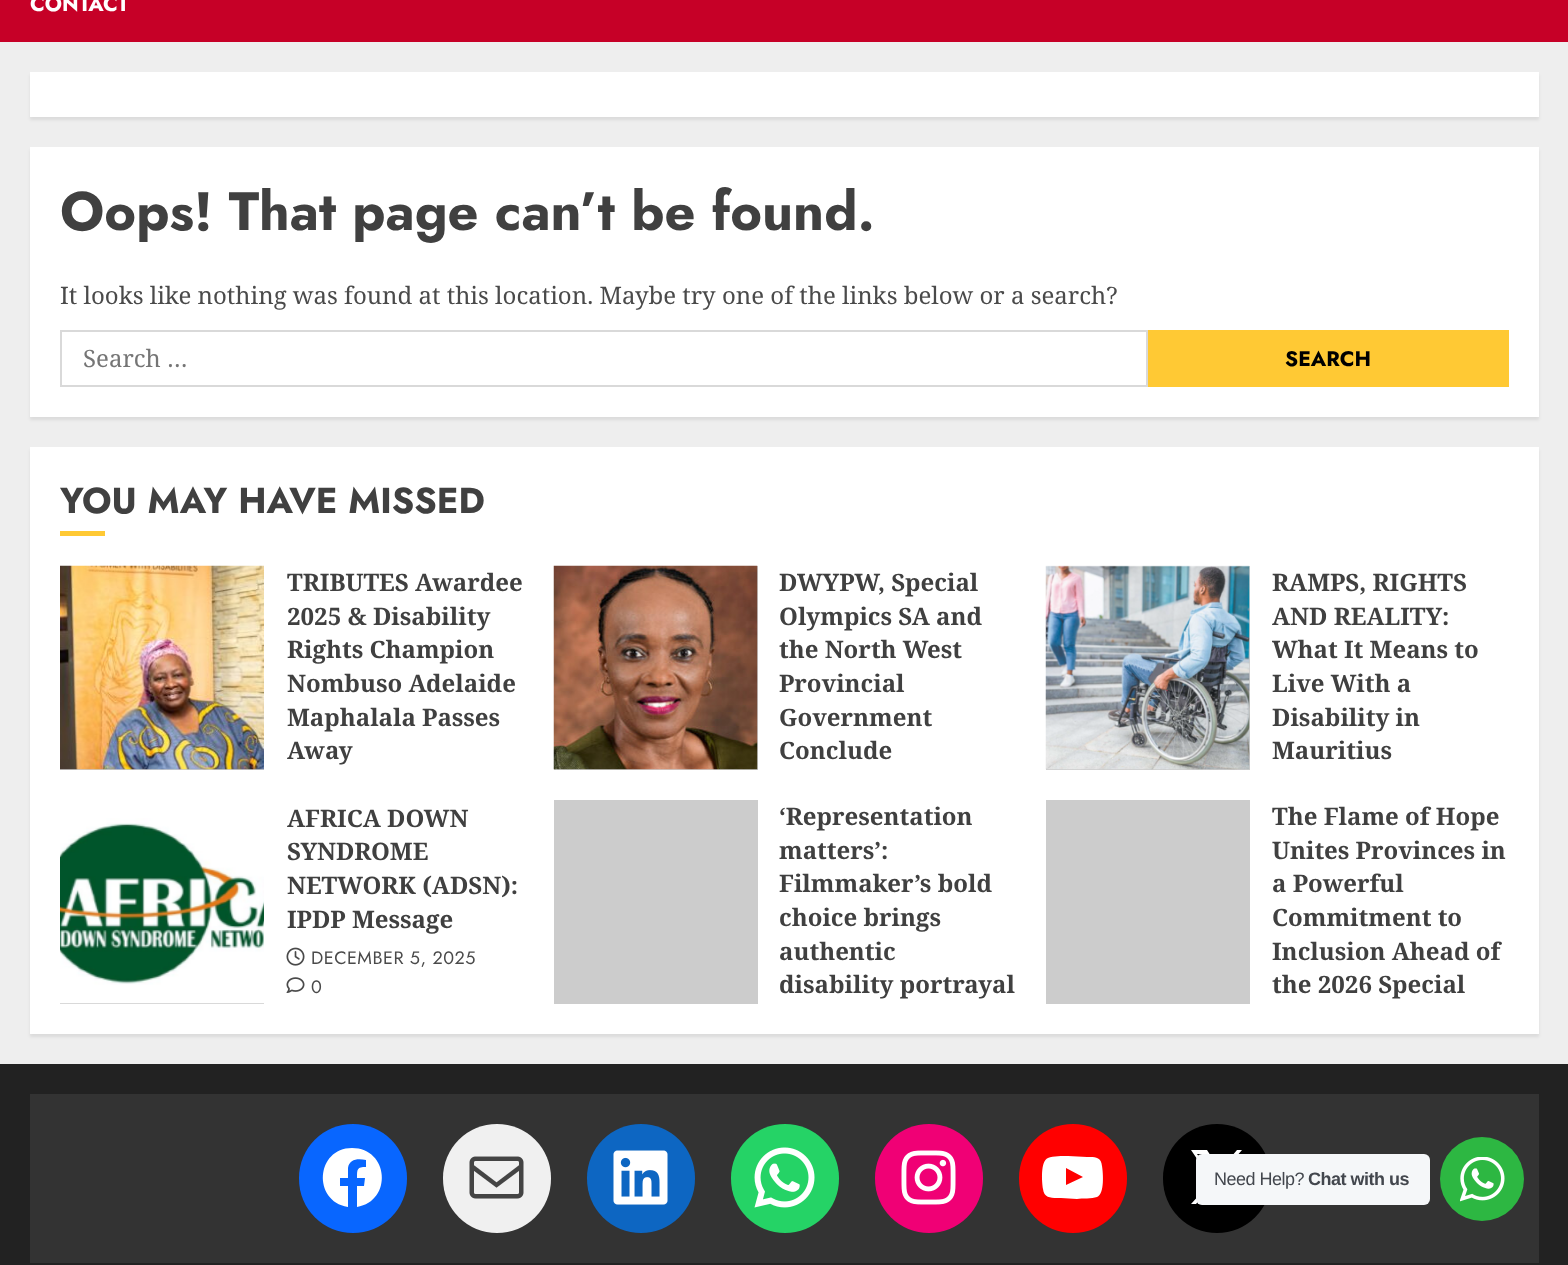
(async () => {
  const canvas = document.querySelector("canvas");
  canvas.width = 1568;
  canvas.height = 1265;
  const ctx = canvas.getContext("2d");
  ctx.miterLimit = 4;
  ctx.fontKerning = "normal";
  async function loadImage(src) {
    const img = new Image();
    img.src = src;
    await img.decode();
    return img;
  }
  let path;

  ctx.fillStyle = "#eeeeee";
  ctx.fillRect(0, 0, 1568, 1265);
  ctx.fillStyle = "#c60027";
  ctx.fillRect(0, 0, 1568, 42);
  ctx.fillStyle = "rgba(0, 0, 0, 0.08)";
  ctx.filter = "blur(1.5px)";
  ctx.beginPath();
  ctx.rect(30, 75, 1509, 45);
  ctx.fill();
  ctx.filter = "none";
  ctx.fillStyle = "#ffffff";
  ctx.fillRect(30, 72, 1509, 45);
  ctx.fillStyle = "rgba(0, 0, 0, 0.08)";
  ctx.filter = "blur(1.5px)";
  ctx.beginPath();
  ctx.rect(30, 150, 1509, 270);
  ctx.fill();
  ctx.filter = "none";
  ctx.fillStyle = "#ffffff";
  ctx.fillRect(30, 147, 1509, 270);
  ctx.strokeStyle = "#d9d9d9";
  ctx.lineWidth = 2;
  ctx.strokeRect(61, 331, 1086, 55);
  ctx.fillStyle = "#ffc934";
  ctx.fillRect(1148, 330, 361, 57);
  ctx.fillStyle = "rgba(0, 0, 0, 0.08)";
  ctx.filter = "blur(1.5px)";
  ctx.beginPath();
  ctx.rect(30, 450, 1509, 587);
  ctx.fill();
  ctx.filter = "none";
  for (const [x, y, w, h, color] of [
    [30, 447, 1509, 587, "#ffffff"],
    [60, 531, 45, 5, "#ffc934"],
    [60, 769, 204, 1, "#cccccc"],
  ]) {
    ctx.fillStyle = color;
    ctx.fillRect(x, y, w, h);
  }
  ctx.drawImage(await loadImage("img/1.png"), 60, 565, 204, 205);
  ctx.fillRect(554, 566, 204, 204);
  ctx.drawImage(await loadImage("img/2.png"), 553, 565, 205, 205);
  ctx.fillRect(1046, 566, 204, 204);
  ctx.drawImage(await loadImage("img/3.png"), 1045, 565, 205, 205);
  ctx.fillRect(60, 1003, 204, 1);
  ctx.drawImage(await loadImage("img/4.png"), 60, 800, 204, 204);
  ctx.drawImage(await loadImage("img/5.png"), 286, 947, 19, 19);
  ctx.drawImage(await loadImage("img/6.png"), 286, 977, 19, 16);
  for (const [x, y, w, h, color] of [
    [554, 800, 204, 204, "#cccccc"],
    [1046, 800, 204, 204, "#cccccc"],
    [0, 1064, 1568, 201, "#222222"],
    [30, 1094, 1509, 169, "#333333"],
  ]) {
    ctx.fillStyle = color;
    ctx.fillRect(x, y, w, h);
  }
  ctx.fillStyle = "#0866ff";
  ctx.beginPath();
  ctx.roundRect(299, 1124, 108, 109, 54);
  ctx.fill();
  ctx.fillStyle = "#ffffff";
  path = new Path2D("M352 1148C316 1148 312 1201 348 1207V1186H340V1178H348V1168C349 1159 358 1158 366 1160V1167C357 1167 357 1169 357 1178H365L364 1186H357V1207C393 1201 389 1148 352 1148Z");
  ctx.fill(path);
  ctx.fillStyle = "#f0f0f0";
  ctx.beginPath();
  ctx.roundRect(443, 1124, 108, 109, 54);
  ctx.fill();
  ctx.drawImage(await loadImage("img/7.png"), 469, 1156, 55, 43);
  ctx.fillStyle = "#0d66c2";
  ctx.beginPath();
  ctx.roundRect(587, 1124, 108, 109, 54);
  ctx.fill();
  ctx.drawImage(await loadImage("img/8.png"), 613, 1150, 55, 55);
  ctx.fillStyle = "#25d366";
  ctx.beginPath();
  ctx.roundRect(731, 1124, 108, 109, 54);
  ctx.fill();
  ctx.drawImage(await loadImage("img/9.png"), 754, 1147, 61, 61);
  ctx.fillStyle = "#f00075";
  ctx.beginPath();
  ctx.roundRect(875, 1124, 108, 109, 54);
  ctx.fill();
  ctx.drawImage(await loadImage("img/10.png"), 901, 1150, 55, 55);
  ctx.fillStyle = "#ff0000";
  ctx.beginPath();
  ctx.roundRect(1019, 1124, 108, 109, 54);
  ctx.fill();
  ctx.fillStyle = "#ffffff";
  path = new Path2D("M1102 1166C1101 1156 1094 1157 1087 1157L1068 1156C1063 1156 1053 1156 1048 1158C1040 1161 1042 1183 1043 1189C1044 1199 1053 1198 1061 1198L1077 1199C1082 1198 1092 1199 1097 1197C1105 1194 1103 1172 1102 1166ZM1066 1185V1168L1083 1177Z");
  ctx.fill(path);
  ctx.fillStyle = "#000000";
  ctx.beginPath();
  ctx.roundRect(1163, 1124, 108, 109, 54);
  ctx.fill();
  ctx.fillStyle = "#ffffff";
  path = new Path2D("M1222 1173L1242 1150H1237L1220 1170L1207 1150H1191L1212 1181L1191 1204H1196L1214 1184L1228 1204H1244ZM1216 1181L1197 1154H1204L1237 1201H1230Z");
  ctx.fill(path);
  ctx.fillStyle = "#f5f7f9";
  ctx.beginPath();
  ctx.roundRect(1196, 1154, 234, 51, 6);
  ctx.fill();
  ctx.fillStyle = "#2db742";
  ctx.beginPath();
  ctx.arc(1482, 1179, 42, 0, Math.PI * 2);
  ctx.fill();
  ctx.drawImage(await loadImage("img/11.png"), 1460, 1157, 45, 45);
  ctx.font = "bold 21px Jost";
  ctx.fillStyle = "#ffffff";
  ctx.fillText("CONTACT", 30, 11);
  ctx.font = "bold 54px Jost";
  ctx.fillStyle = "#404040";
  ctx.fillText("Oops! That page can’t be found.", 60, 230);
  ctx.font = "24px Noto Serif";
  ctx.fillStyle = "#4a4a4a";
  ctx.fillText("It looks like nothing was found at this location. Maybe try one of the links below or a search?", 60, 304);
  ctx.fillStyle = "#757575";
  ctx.fillText("Search …", 83, 367);
  ctx.font = "bold 21px Jost";
  ctx.fillStyle = "#000000";
  ctx.fillText("SEARCH", 1285, 366);
  ctx.font = "bold 36px Jost";
  ctx.fillStyle = "#404040";
  ctx.fillText("YOU MAY HAVE MISSED", 60, 513);
  ctx.font = "bold 24px Noto Serif";
  for (const [text, x, y] of [
    ["TRIBUTES Awardee", 287, 591],
    ["2025 & Disability", 287, 625],
    ["Rights Champion", 287, 658],
    ["Nombuso Adelaide", 287, 692],
    ["Maphalala Passes", 287, 726],
    ["Away", 287, 759],
    ["DWYPW, Special", 779, 591],
    ["Olympics SA and", 779, 625],
    ["the North West", 779, 658],
    ["Provincial", 779, 692],
    ["Government", 779, 726],
    ["Conclude", 779, 759],
    ["RAMPS, RIGHTS", 1272, 591],
    ["AND REALITY:", 1272, 625],
    ["What It Means to", 1272, 658],
    ["Live With a", 1272, 692],
    ["Disability in", 1272, 726],
    ["Mauritius", 1272, 759],
    ["AFRICA DOWN", 287, 827],
    ["SYNDROME", 287, 860],
    ["NETWORK (ADSN):", 287, 894],
    ["IPDP Message", 287, 928],
  ]) {
    ctx.fillText(text, x, y);
  }
  ctx.letterSpacing = "0.5px";
  ctx.font = "18px Jost";
  ctx.fillStyle = "#4a4a4a";
  ctx.fillText("DECEMBER 5, 2025", 311, 964);
  ctx.fillText("0", 311, 993);
  ctx.letterSpacing = "0px";
  ctx.font = "bold 24px Noto Serif";
  ctx.fillStyle = "#404040";
  for (const [text, x, y] of [
    ["‘Representation", 779, 825],
    ["matters’:", 779, 859],
    ["Filmmaker’s bold", 779, 892],
    ["choice brings", 779, 926],
    ["authentic", 779, 960],
    ["disability portrayal", 779, 993],
    ["The Flame of Hope", 1272, 825],
    ["Unites Provinces in", 1272, 859],
    ["a Powerful", 1272, 892],
    ["Commitment to", 1272, 926],
    ["Inclusion Ahead of", 1272, 960],
    ["the 2026 Special", 1272, 993],
  ]) {
    ctx.fillText(text, x, y);
  }
  ctx.letterSpacing = "-0.5px";
  ctx.font = "18px Liberation Sans";
  ctx.fillStyle = "#43474e";
  ctx.fillText("Need Help?", 1214, 1185);
  ctx.font = "bold 18px Liberation Sans";
  ctx.fillText("Chat with us", 1308, 1185);
})();
